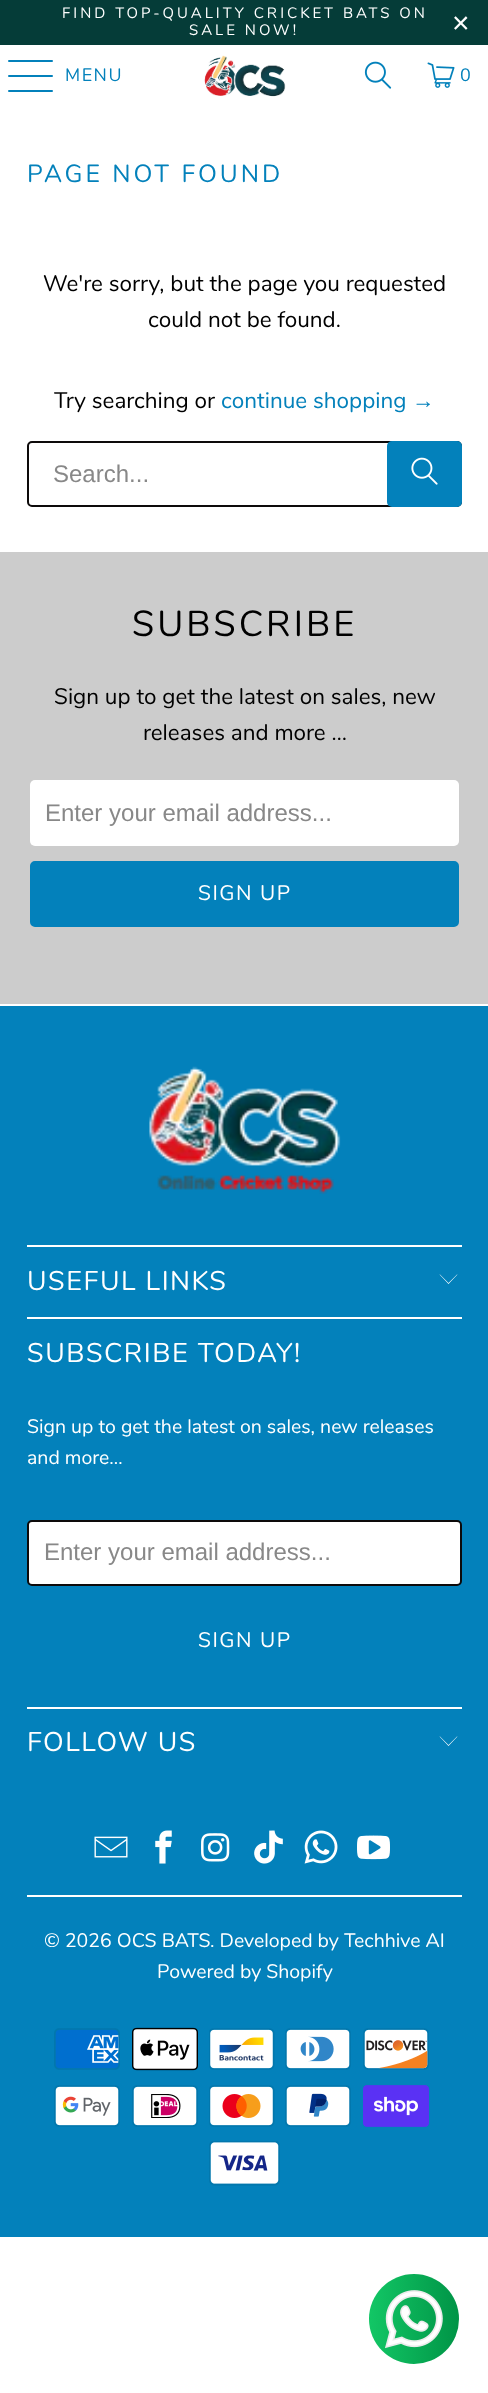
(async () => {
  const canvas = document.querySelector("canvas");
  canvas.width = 488;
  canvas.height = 2393;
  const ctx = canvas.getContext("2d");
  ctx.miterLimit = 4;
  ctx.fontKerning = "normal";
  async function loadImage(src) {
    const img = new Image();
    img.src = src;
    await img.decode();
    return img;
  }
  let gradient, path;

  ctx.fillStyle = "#ffffff";
  ctx.fillRect(0, 0, 488, 2393);
  ctx.fillStyle = "#053c38";
  ctx.fillRect(0, 0, 488, 45);
  ctx.fillStyle = "#0381bb";
  ctx.beginPath();
  ctx.roundRect(8, 60, 45, 2, 1);
  ctx.fill();
  ctx.beginPath();
  ctx.roundRect(8, 75, 45, 2, 1);
  ctx.fill();
  ctx.beginPath();
  ctx.roundRect(8, 90, 45, 2, 1);
  ctx.fill();
  ctx.drawImage(await loadImage("img/1.png"), 204, 55, 82, 42);
  ctx.drawImage(await loadImage("img/2.png"), 364, 61, 28, 28);
  ctx.drawImage(await loadImage("img/3.png"), 427, 62, 28, 26);
  ctx.beginPath();
  ctx.roundRect(28, 442, 433, 64, 4);
  ctx.strokeStyle = "#0d0a0a";
  ctx.lineWidth = 2;
  ctx.stroke();
  ctx.beginPath();
  ctx.roundRect(387, 441, 75, 66, 5);
  ctx.fill();
  ctx.drawImage(await loadImage("img/4.png"), 411, 457, 27, 28);
  ctx.fillStyle = "#cccccc";
  ctx.fillRect(0, 552, 488, 452);
  ctx.fillStyle = "#ffffff";
  ctx.beginPath();
  ctx.roundRect(30, 780, 429, 66, 5);
  ctx.fill();
  ctx.fillStyle = "#0381bb";
  ctx.beginPath();
  ctx.roundRect(31, 862, 427, 64, 4);
  ctx.fill();
  ctx.strokeStyle = "#0381bb";
  ctx.stroke();
  ctx.fillRect(0, 1006, 488, 1231);
  ctx.drawImage(await loadImage("img/5.png"), 149, 1066, 192, 128);
  ctx.fillStyle = "#ffffff";
  ctx.fillRect(27, 1245, 435, 2);
  path = new Path2D("M448.5 1284L439.5 1274.5H440L448.5 1283L457 1274.5H457.5Z");
  ctx.fill(path);
  ctx.fillRect(27, 1317, 435, 2);
  ctx.beginPath();
  ctx.roundRect(28, 1521, 433, 64, 4);
  ctx.fill();
  ctx.strokeStyle = "#0d0a0a";
  ctx.stroke();
  ctx.fillRect(27, 1707, 435, 2);
  path = new Path2D("M448.5 1746L439.5 1736.5H440L448.5 1745L457 1736.5H457.5Z");
  ctx.fill(path);
  ctx.drawImage(await loadImage("img/6.png"), 94, 1836, 34, 22);
  ctx.drawImage(await loadImage("img/7.png"), 155, 1830, 17, 34);
  ctx.drawImage(await loadImage("img/8.png"), 201, 1833, 29, 29);
  ctx.drawImage(await loadImage("img/9.png"), 254, 1830, 29, 34);
  ctx.drawImage(await loadImage("img/10.png"), 304, 1830, 34, 34);
  ctx.drawImage(await loadImage("img/11.png"), 357, 1835, 33, 25);
  ctx.fillRect(27, 1895, 435, 2);
  ctx.drawImage(await loadImage("img/12.png"), 54, 2028, 66, 42);
  ctx.drawImage(await loadImage("img/13.png"), 132, 2027, 66, 44);
  ctx.drawImage(await loadImage("img/14.png"), 209, 2028, 66, 42);
  ctx.drawImage(await loadImage("img/15.png"), 285, 2028, 66, 42);
  ctx.drawImage(await loadImage("img/16.png"), 363, 2028, 66, 42);
  ctx.drawImage(await loadImage("img/17.png"), 54, 2085, 66, 42);
  ctx.drawImage(await loadImage("img/18.png"), 132, 2085, 66, 42);
  ctx.drawImage(await loadImage("img/19.png"), 209, 2085, 66, 42);
  ctx.drawImage(await loadImage("img/20.png"), 285, 2085, 66, 42);
  ctx.drawImage(await loadImage("img/21.png"), 363, 2085, 66, 42);
  ctx.drawImage(await loadImage("img/22.png"), 209, 2141, 71, 45);
  gradient = ctx.createLinearGradient(369, 2319, 459, 2319);
  gradient.addColorStop(0.01, "#12c665");
  gradient.addColorStop(1, "#009446");
  ctx.fillStyle = gradient;
  ctx.beginPath();
  ctx.arc(414, 2319, 45, 0, Math.PI * 2);
  ctx.fill();
  ctx.drawImage(await loadImage("img/23.png"), 385, 2290, 58, 59);
  ctx.letterSpacing = "3px";
  ctx.font = "15px Nunito";
  ctx.fillStyle = "#ffffff";
  ctx.fillText("FIND TOP-QUALITY CRICKET BATS ON", 62, 18);
  ctx.fillText("SALE NOW!", 189, 35);
  ctx.font = "30px Liberation Sans";
  ctx.fillText("×", 452, 33);
  ctx.letterSpacing = "1.5px";
  ctx.font = "18px Nunito";
  ctx.fillStyle = "#0381bb";
  ctx.fillText("MENU", 65, 81);
  ctx.fillText("0", 460, 81);
  ctx.letterSpacing = "3px";
  ctx.font = "24.75px Nunito";
  ctx.fillText("PAGE NOT FOUND", 27, 182);
  ctx.letterSpacing = "0px";
  ctx.font = "22.5px Nunito";
  ctx.fillStyle = "#000000";
  for (const [text, x, y] of [
    ["We're sorry, but the page you requested", 43, 291],
    ["could not be found.", 148, 327],
    ["Try searching or", 54, 408],
  ]) {
    ctx.fillText(text, x, y);
  }
  ctx.fillStyle = "#0381bb";
  ctx.fillText("continue shopping", 221, 408);
  ctx.font = "22.5px Liberation Sans";
  ctx.fillText("→", 412, 408);
  ctx.font = "24px Liberation Sans";
  ctx.fillStyle = "#888888";
  ctx.fillText("Search...", 53, 482);
  ctx.letterSpacing = "3px";
  ctx.font = "36px Nunito";
  ctx.fillStyle = "#000000";
  ctx.fillText("SUBSCRIBE", 132, 636);
  ctx.letterSpacing = "0px";
  ctx.font = "22.5px Nunito";
  ctx.fillText("Sign up to get the latest on sales, new", 54, 704);
  ctx.fillText("releases and more …", 143, 740);
  ctx.font = "24px Liberation Sans";
  ctx.fillStyle = "#888888";
  ctx.fillText("Enter your email address...", 45, 821);
  ctx.letterSpacing = "1.5px";
  ctx.font = "21px Nunito";
  ctx.fillStyle = "#ffffff";
  ctx.fillText("SIGN UP", 198, 900);
  ctx.font = "27px Nunito";
  ctx.fillText("USEFUL LINKS", 27, 1290);
  ctx.fillText("SUBSCRIBE TODAY!", 27, 1362);
  ctx.letterSpacing = "0px";
  ctx.font = "19.5px Nunito";
  ctx.fillText("Sign up to get the latest on sales, new releases", 27, 1433);
  ctx.fillText("and more…", 27, 1464);
  ctx.font = "24px Liberation Sans";
  ctx.fillStyle = "#888888";
  ctx.fillText("Enter your email address...", 44, 1560);
  ctx.letterSpacing = "1.5px";
  ctx.font = "21px Nunito";
  ctx.fillStyle = "#ffffff";
  ctx.fillText("SIGN UP", 198, 1647);
  ctx.font = "27px Nunito";
  ctx.fillText("FOLLOW US", 27, 1751);
  ctx.letterSpacing = "0px";
  ctx.font = "19.5px Nunito";
  for (const [text, x, y] of [
    ["© 2026 OCS BATS", 44, 1947],
    [". Developed by Techhive AI", 210, 1947],
    ["Powered by Shopify", 157, 1978],
  ]) {
    ctx.fillText(text, x, y);
  }
})();
